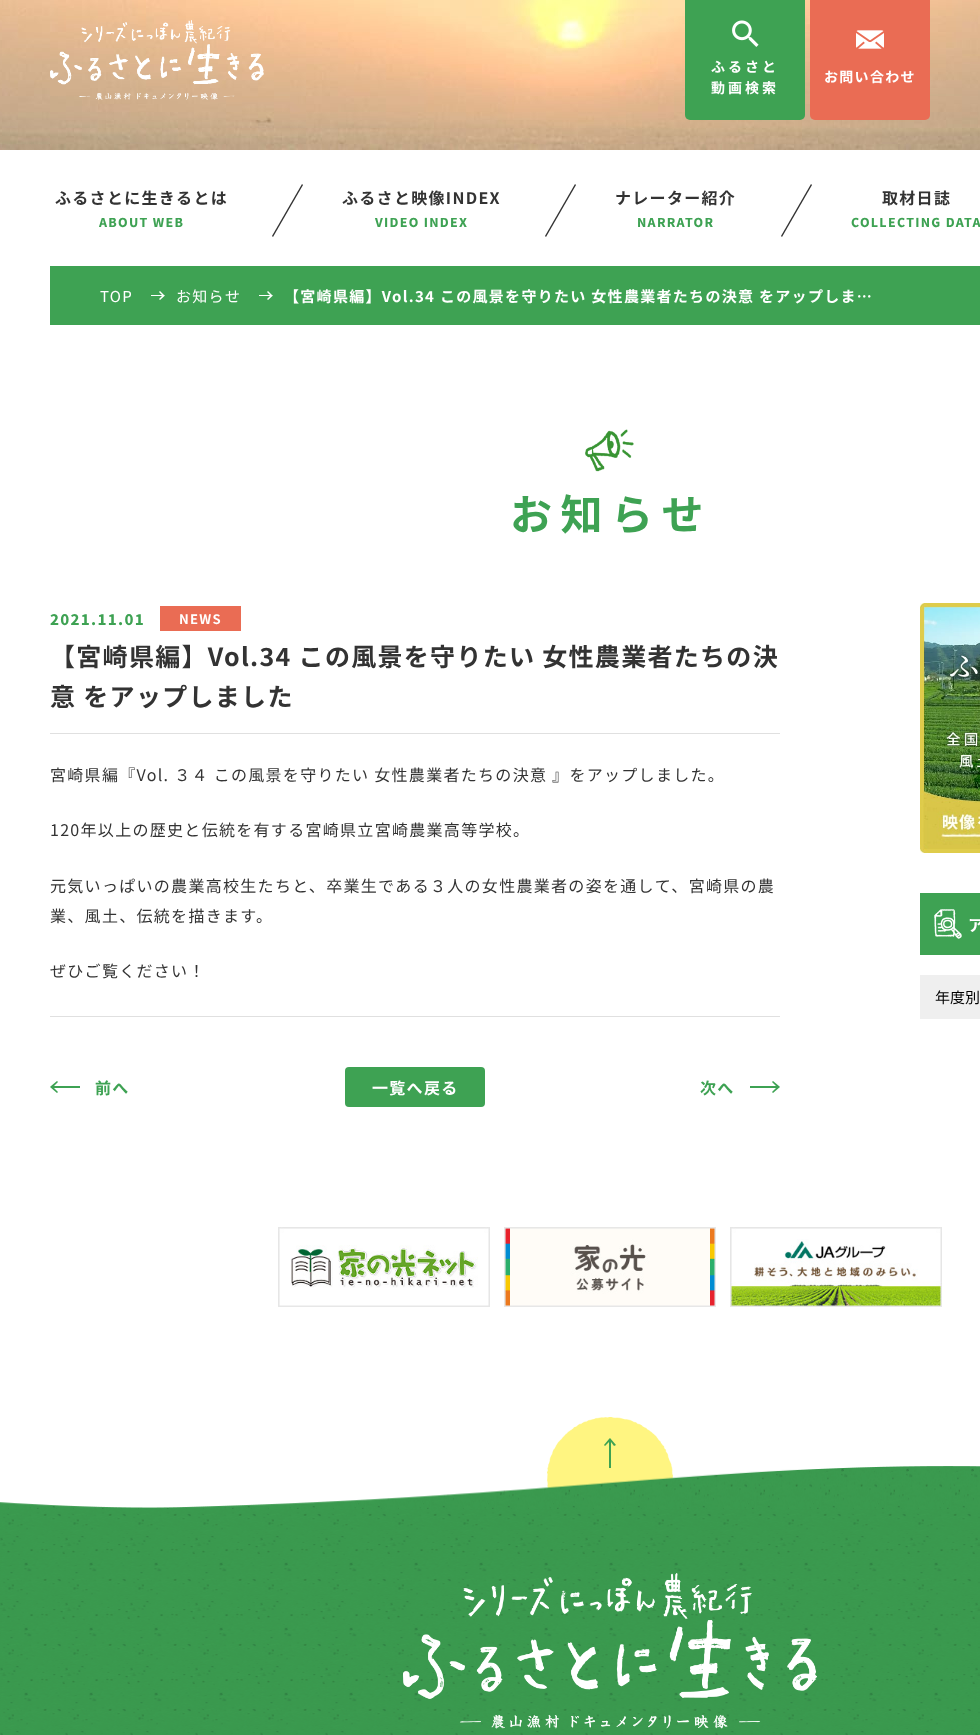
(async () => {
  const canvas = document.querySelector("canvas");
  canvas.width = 980;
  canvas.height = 1735;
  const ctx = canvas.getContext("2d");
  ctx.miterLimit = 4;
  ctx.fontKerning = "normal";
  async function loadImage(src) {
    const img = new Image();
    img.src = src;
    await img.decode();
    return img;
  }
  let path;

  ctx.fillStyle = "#ffffff";
  ctx.fillRect(0, 0, 980, 1735);
  ctx.drawImage(await loadImage("img/1.png"), 0, 0, 980, 150);
  ctx.drawImage(await loadImage("img/2.png"), 50, 20, 214, 80);
  ctx.fillStyle = "#3ea253";
  ctx.beginPath();
  ctx.roundRect(685, 0, 120, 120, [0, 0, 5, 5]);
  ctx.fill();
  ctx.drawImage(await loadImage("img/3.png"), 732, 20, 27, 27);
  ctx.fillStyle = "#ea6c54";
  ctx.beginPath();
  ctx.roundRect(810, 0, 120, 120, [0, 0, 5, 5]);
  ctx.fill();
  ctx.drawImage(await loadImage("img/4.png"), 856, 30, 28, 19);
  ctx.fillStyle = "#333333";
  path = new Path2D("M302 184L303 185L273 237L272 236Z");
  ctx.fill(path);
  path = new Path2D("M575 184L576 185L546 237L545 236Z");
  ctx.fill(path);
  path = new Path2D("M811 184L812 185L782 237L781 236Z");
  ctx.fill(path);
  ctx.fillStyle = "#3ea253";
  ctx.fillRect(50, 266, 930, 59);
  ctx.save();
  ctx.beginPath();
  ctx.rect(151, 291, 14, 9);
  ctx.clip();
  ctx.fillStyle = "#ffffff";
  path = new Path2D("M164 295L165 295.5L160 300L159 299L162 296H135V295H162L159 292L160 291Z");
  ctx.fill(path, "evenodd");
  ctx.restore();
  ctx.save();
  ctx.beginPath();
  ctx.rect(259, 291, 14, 9);
  ctx.clip();
  ctx.fillStyle = "#ffffff";
  path = new Path2D("M272 295L273 295.5L268 300L267 299L270 296H243V295H270L267 292L268 291Z");
  ctx.fill(path, "evenodd");
  ctx.restore();
  ctx.drawImage(await loadImage("img/5.png"), 585, 429, 49, 43);
  for (const [x, y, w, h, color] of [
    [160, 606, 81, 25, "#ea6c54"],
    [50, 733, 730, 1, "#e0e0e0"],
    [50, 1016, 730, 1, "#e0e0e0"],
  ]) {
    ctx.fillStyle = color;
    ctx.fillRect(x, y, w, h);
  }
  ctx.save();
  ctx.beginPath();
  ctx.rect(50, 1081, 30, 12);
  ctx.clip();
  ctx.fillStyle = "#3ea253";
  path = new Path2D("M51 1086L50 1087L57 1093L58 1092L54 1088H90V1086H54L58 1082L57 1081Z");
  ctx.fill(path, "evenodd");
  ctx.restore();
  ctx.fillStyle = "#3ea253";
  ctx.beginPath();
  ctx.roundRect(345, 1067, 140, 40, 4);
  ctx.fill();
  ctx.save();
  ctx.beginPath();
  ctx.rect(750, 1081, 30, 12);
  ctx.clip();
  path = new Path2D("M779 1086L780 1087L773 1093L772 1092L776 1088H740V1086H776L772 1082L773 1081Z");
  ctx.fill(path, "evenodd");
  ctx.restore();
  ctx.drawImage(await loadImage("img/6.png"), 920, 603, 60, 250);
  ctx.fillRect(920, 893, 60, 62);
  ctx.drawImage(await loadImage("img/7.png"), 934, 909, 28, 30);
  ctx.fillStyle = "#efefef";
  ctx.fillRect(920, 975, 60, 44);
  ctx.drawImage(await loadImage("img/8.png"), 278, 1227, 212, 80);
  ctx.drawImage(await loadImage("img/9.png"), 504, 1227, 212, 80);
  ctx.drawImage(await loadImage("img/10.png"), 730, 1227, 212, 80);
  ctx.drawImage(await loadImage("img/11.png"), 547, 1417, 126, 72);
  ctx.fillStyle = "#3ea253";
  path = new Path2D("M609 1439L610 1438L616 1445L614 1446L611 1442V1468H609V1442L605 1446L604 1445Z");
  ctx.fill(path);
  ctx.drawImage(await loadImage("img/12.png"), 0, 1508, 980, 227);
  ctx.drawImage(await loadImage("img/13.png"), 0, 1466, 980, 43);
  ctx.drawImage(await loadImage("img/14.png"), 403, 1573, 414, 156);
  ctx.letterSpacing = "3px";
  ctx.font = "bold 14px Noto Sans JP";
  ctx.fillStyle = "#ffffff";
  ctx.fillText("ふるさと", 711, 72);
  ctx.fillText("動画検索", 711, 93);
  ctx.letterSpacing = "1.3px";
  ctx.fillText("お問い合わせ", 824, 82);
  ctx.font = "bold 16px Noto Sans JP";
  ctx.fillStyle = "#333333";
  ctx.fillText("ふるさとに生きるとは", 55, 204);
  ctx.font = "bold 14px Source Sans Pro";
  ctx.fillStyle = "#3ea253";
  ctx.fillText("ABOUT WEB", 99, 227);
  ctx.font = "bold 16px Noto Sans JP";
  ctx.fillStyle = "#333333";
  ctx.fillText("ふるさと映像INDEX", 342, 204);
  ctx.font = "bold 14px Source Sans Pro";
  ctx.fillStyle = "#3ea253";
  ctx.fillText("VIDEO INDEX", 375, 227);
  ctx.font = "bold 16px Noto Sans JP";
  ctx.fillStyle = "#333333";
  ctx.fillText("ナレーター紹介", 615, 204);
  ctx.font = "bold 14px Source Sans Pro";
  ctx.fillStyle = "#3ea253";
  ctx.fillText("NARRATOR", 637, 227);
  ctx.font = "bold 16px Noto Sans JP";
  ctx.fillStyle = "#333333";
  ctx.fillText("取材日誌", 882, 204);
  ctx.font = "bold 14px Source Sans Pro";
  ctx.fillStyle = "#3ea253";
  ctx.fillText("COLLECTING DATA", 851, 227);
  ctx.font = "15px Noto Sans JP";
  ctx.fillStyle = "#ffffff";
  ctx.fillText("TOP", 100, 302);
  ctx.fillText("お知らせ", 176, 302);
  ctx.font = "bold 15px Noto Sans JP";
  ctx.fillText("【宮崎県編】Vol.34 この風景を守りたい 女性農業者たちの決意 をアップしま…", 284, 302);
  ctx.letterSpacing = "8.5px";
  ctx.font = "bold 42px Noto Sans JP";
  ctx.fillStyle = "#3ea253";
  ctx.fillText("お知らせ", 510, 530);
  ctx.letterSpacing = "1.3px";
  ctx.font = "bold 17px Source Sans Pro";
  ctx.fillText("2021.11.01", 50, 625);
  ctx.font = "bold 13px Noto Sans JP";
  ctx.fillStyle = "#ffffff";
  ctx.fillText("NEWS", 179, 624);
  ctx.font = "bold 25px Noto Sans JP";
  ctx.fillStyle = "#333333";
  ctx.fillText("【宮崎県編】Vol.34 この風景を守りたい 女性農業者たちの決", 50, 666);
  ctx.fillText("意 をアップしました", 50, 706);
  ctx.font = "16px Noto Sans JP";
  for (const [text, x, y] of [
    ["宮崎県編『Vol. ３４ この風景を守りたい 女性農業者たちの決意 』をアップしました。", 50, 781],
    ["120年以上の歴史と伝統を有する宮崎県立宮崎農業高等学校。", 50, 836],
    ["元気いっぱいの農業高校生たちと、卒業生である３人の女性農業者の姿を通して、宮崎県の農", 50, 892],
    ["業、風土、伝統を描きます。", 50, 922],
    ["ぜひご覧ください！", 50, 977],
  ]) {
    ctx.fillText(text, x, y);
  }
  ctx.font = "bold 16px Noto Sans JP";
  ctx.fillStyle = "#3ea253";
  ctx.fillText("前へ", 95, 1094);
  ctx.fillStyle = "#ffffff";
  ctx.fillText("一覧へ戻る", 372, 1094);
  ctx.fillStyle = "#3ea253";
  ctx.fillText("次へ", 700, 1094);
  ctx.fillStyle = "#ffffff";
  ctx.fillText("ア", 968, 931);
  ctx.letterSpacing = "0px";
  ctx.font = "15px Noto Sans JP";
  ctx.fillStyle = "#000000";
  ctx.fillText("年度別", 935, 1003);
})();
